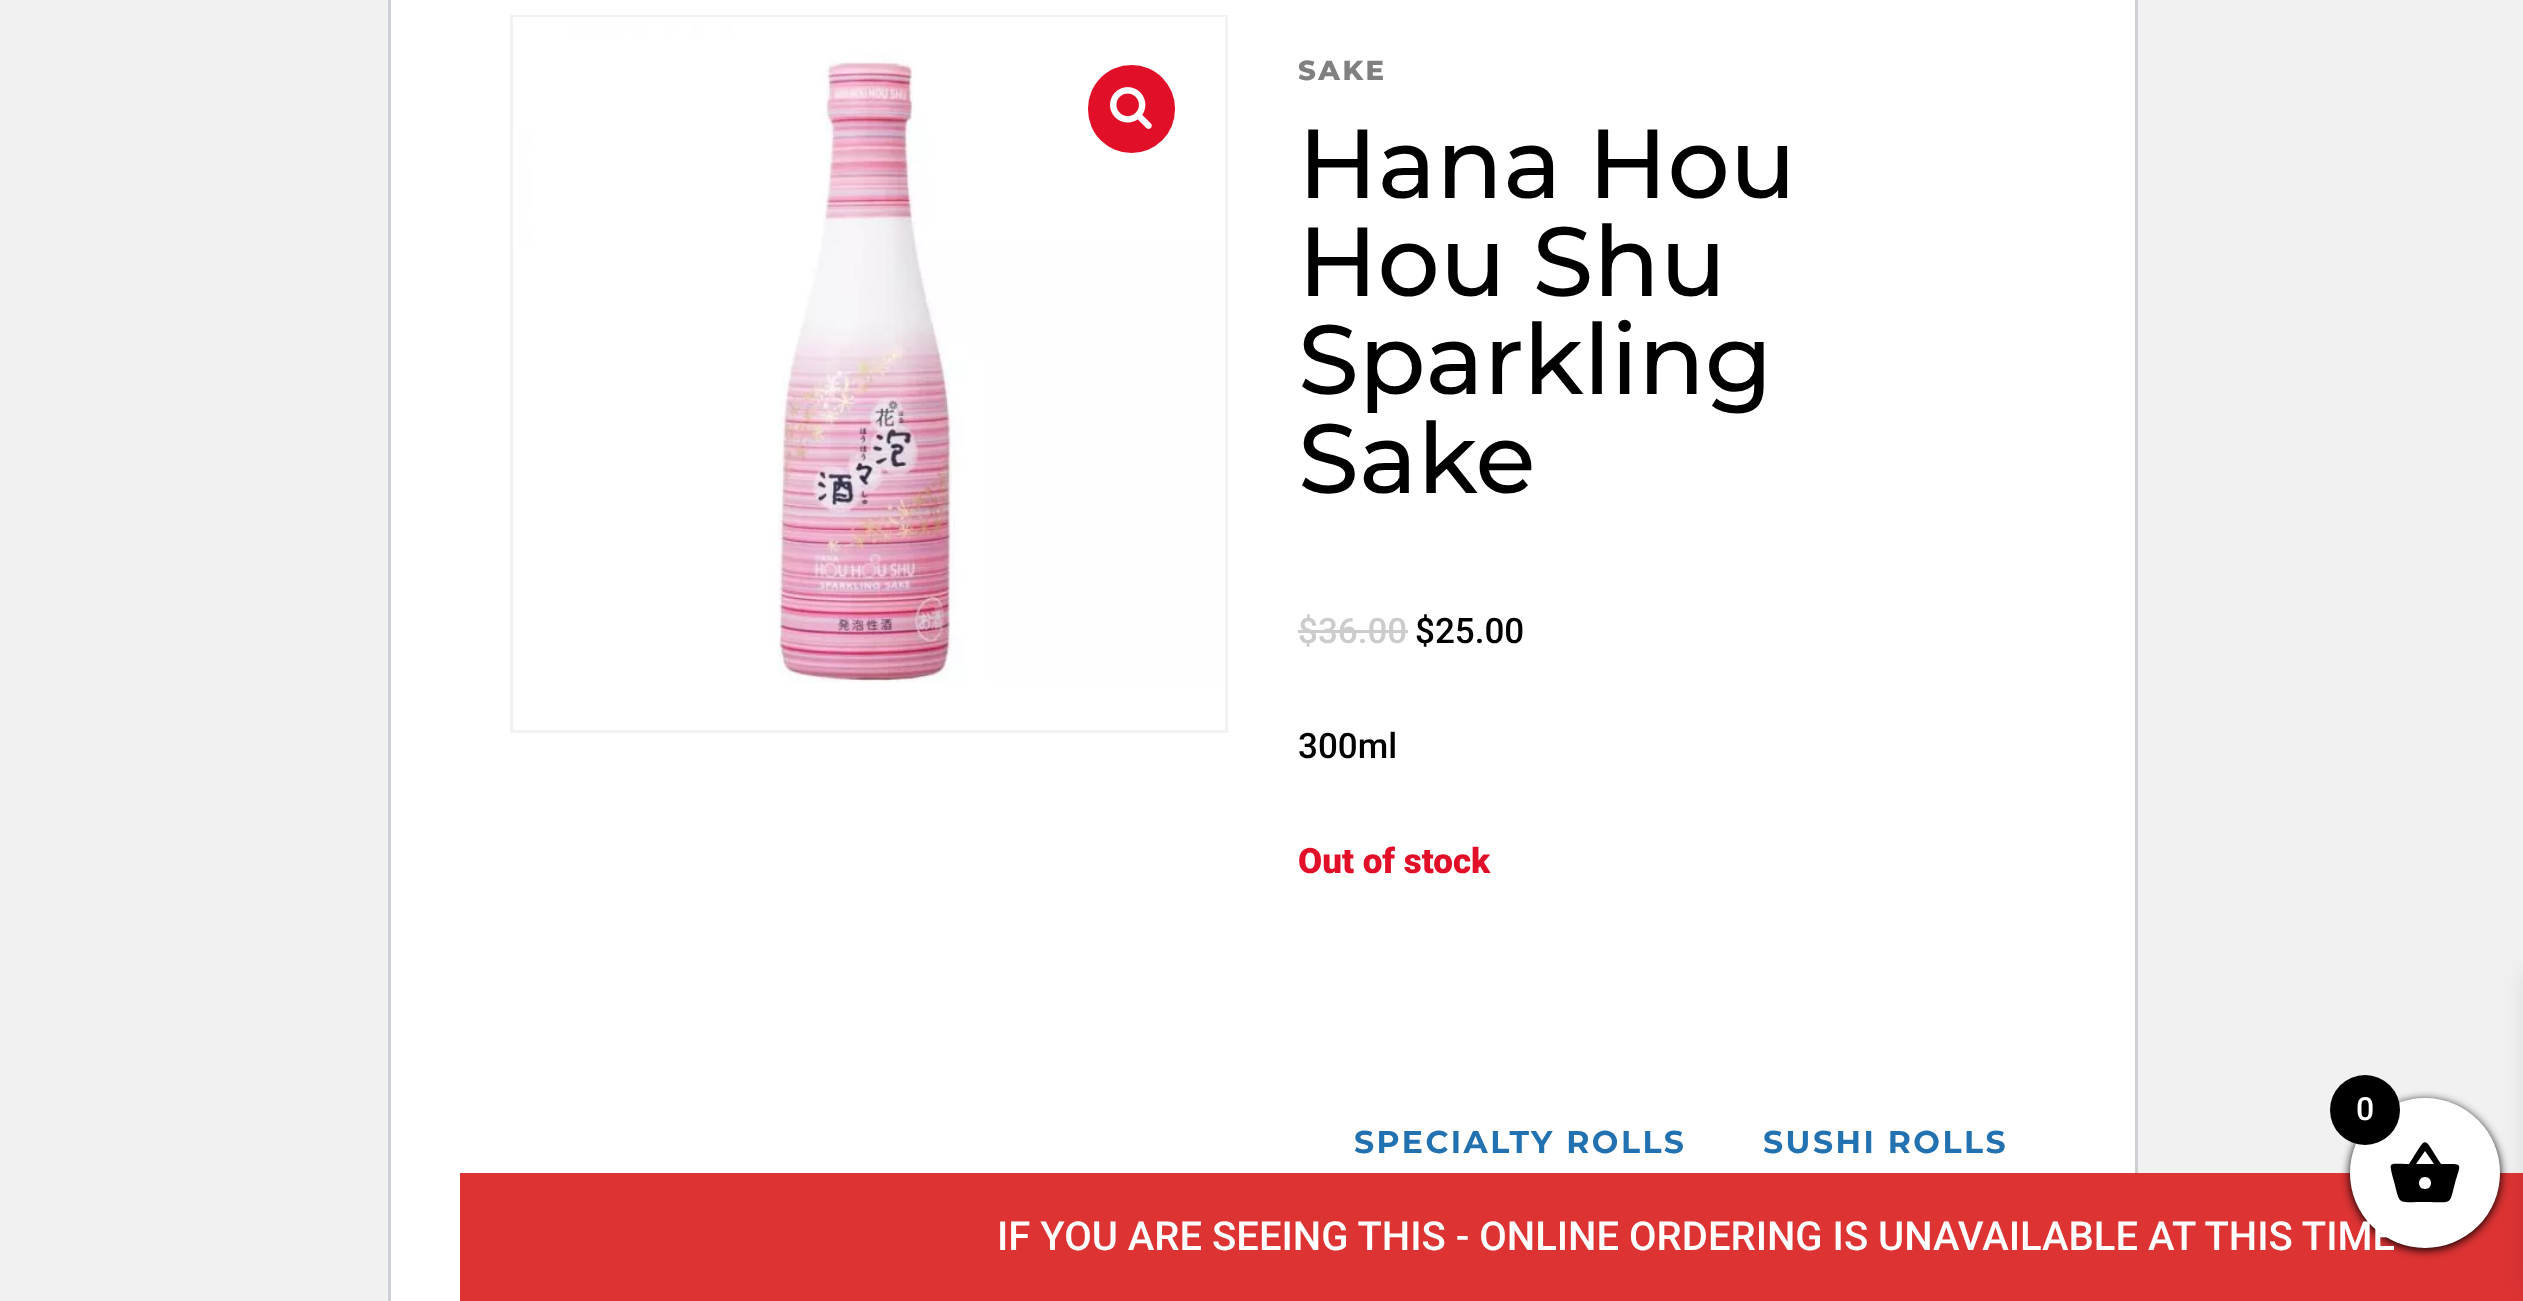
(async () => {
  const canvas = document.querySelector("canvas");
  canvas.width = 2523;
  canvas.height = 1301;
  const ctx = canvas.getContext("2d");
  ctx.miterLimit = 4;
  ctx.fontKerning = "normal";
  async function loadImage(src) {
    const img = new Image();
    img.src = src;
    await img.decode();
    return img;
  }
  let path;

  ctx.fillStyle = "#f1f1f1";
  ctx.fillRect(0, 0, 2523, 1301);
  ctx.fillStyle = "#ffffff";
  ctx.beginPath();
  ctx.rect(389.5, -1.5, 1747, 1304);
  ctx.fill();
  ctx.strokeStyle = "#ccd0d4";
  ctx.lineWidth = 3;
  ctx.stroke();
  ctx.strokeStyle = "#f2f2f2";
  ctx.strokeRect(511.5, 16.5, 715, 715);
  ctx.drawImage(await loadImage("img/1.png"), 513, 17, 712, 666);
  ctx.fillStyle = "#e10f28";
  ctx.beginPath();
  ctx.roundRect(1088, 65, 87, 88, 43.5);
  ctx.fill();
  ctx.drawImage(await loadImage("img/2.png"), 1110, 87, 42, 42);
  ctx.fillStyle = "#cccccc";
  ctx.fillRect(1298, 630, 110, 3);
  ctx.fillStyle = "#dd3333";
  ctx.fillRect(460, 1173, 2063, 128);
  ctx.fillStyle = "#000000";
  ctx.filter = "blur(5px)";
  ctx.beginPath();
  ctx.roundRect(2350, 1100, 150, 150, 75);
  ctx.fill();
  ctx.filter = "none";
  ctx.fillStyle = "rgba(0, 0, 0, 0.1)";
  ctx.filter = "blur(12.5px)";
  ctx.beginPath();
  ctx.rect(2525, 973, 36, 317);
  ctx.fill();
  ctx.filter = "none";
  ctx.fillStyle = "#ffffff";
  ctx.beginPath();
  ctx.arc(2425, 1173, 75, 0, Math.PI * 2);
  ctx.fill();
  ctx.fillStyle = "#000000";
  path = new Path2D("M2425 1189C2433 1189 2433 1177 2425 1177C2417 1177 2417 1189 2425 1189ZM2416 1164H2434L2425 1151ZM2441 1164C2464 1164 2461 1162 2455 1183C2449 1206 2453 1202 2425 1202C2395 1202 2401 1206 2393 1178C2389 1161 2388 1164 2409 1164C2428 1135 2422 1135 2441 1164Z");
  ctx.fill(path);
  ctx.beginPath();
  ctx.arc(2365, 1110, 35, 0, Math.PI * 2);
  ctx.fill();
  ctx.letterSpacing = "2.5px";
  ctx.font = "800 27.5px Montserrat";
  ctx.fillStyle = "#808080";
  ctx.fillText("SAKE", 1298, 80);
  ctx.letterSpacing = "0px";
  ctx.font = "500 98px Montserrat";
  ctx.fillStyle = "#000000";
  for (const [text, x, y] of [
    ["Hana Hou", 1298, 198],
    ["Hou Shu", 1298, 296],
    ["Sparkling", 1298, 394],
    ["Sake", 1298, 493],
  ]) {
    ctx.fillText(text, x, y);
  }
  ctx.font = "500 35px Roboto";
  ctx.fillStyle = "#cccccc";
  ctx.fillText("$36.00", 1298, 643);
  ctx.fillStyle = "#000000";
  ctx.fillText("$25.00", 1415, 643);
  ctx.fillText("300ml", 1298, 758);
  ctx.font = "900 35px Roboto";
  ctx.fillStyle = "#e10f28";
  ctx.fillText("Out of stock", 1298, 873);
  ctx.letterSpacing = "2.5px";
  ctx.font = "bold 31.5px Montserrat";
  ctx.fillStyle = "#2271b1";
  ctx.fillText("SPECIALTY ROLLS", 1354, 1153);
  ctx.fillText("SUSHI ROLLS", 1763, 1153);
  ctx.letterSpacing = "0px";
  ctx.font = "500 32px Roboto";
  ctx.fillStyle = "#ffffff";
  ctx.fillText("0", 2356, 1120);
  ctx.font = "500 40px Roboto";
  ctx.fillText("IF YOU ARE SEEING THIS - ONLINE ORDERING IS UNAVAILABLE AT THIS TIME", 997, 1250);
})();
